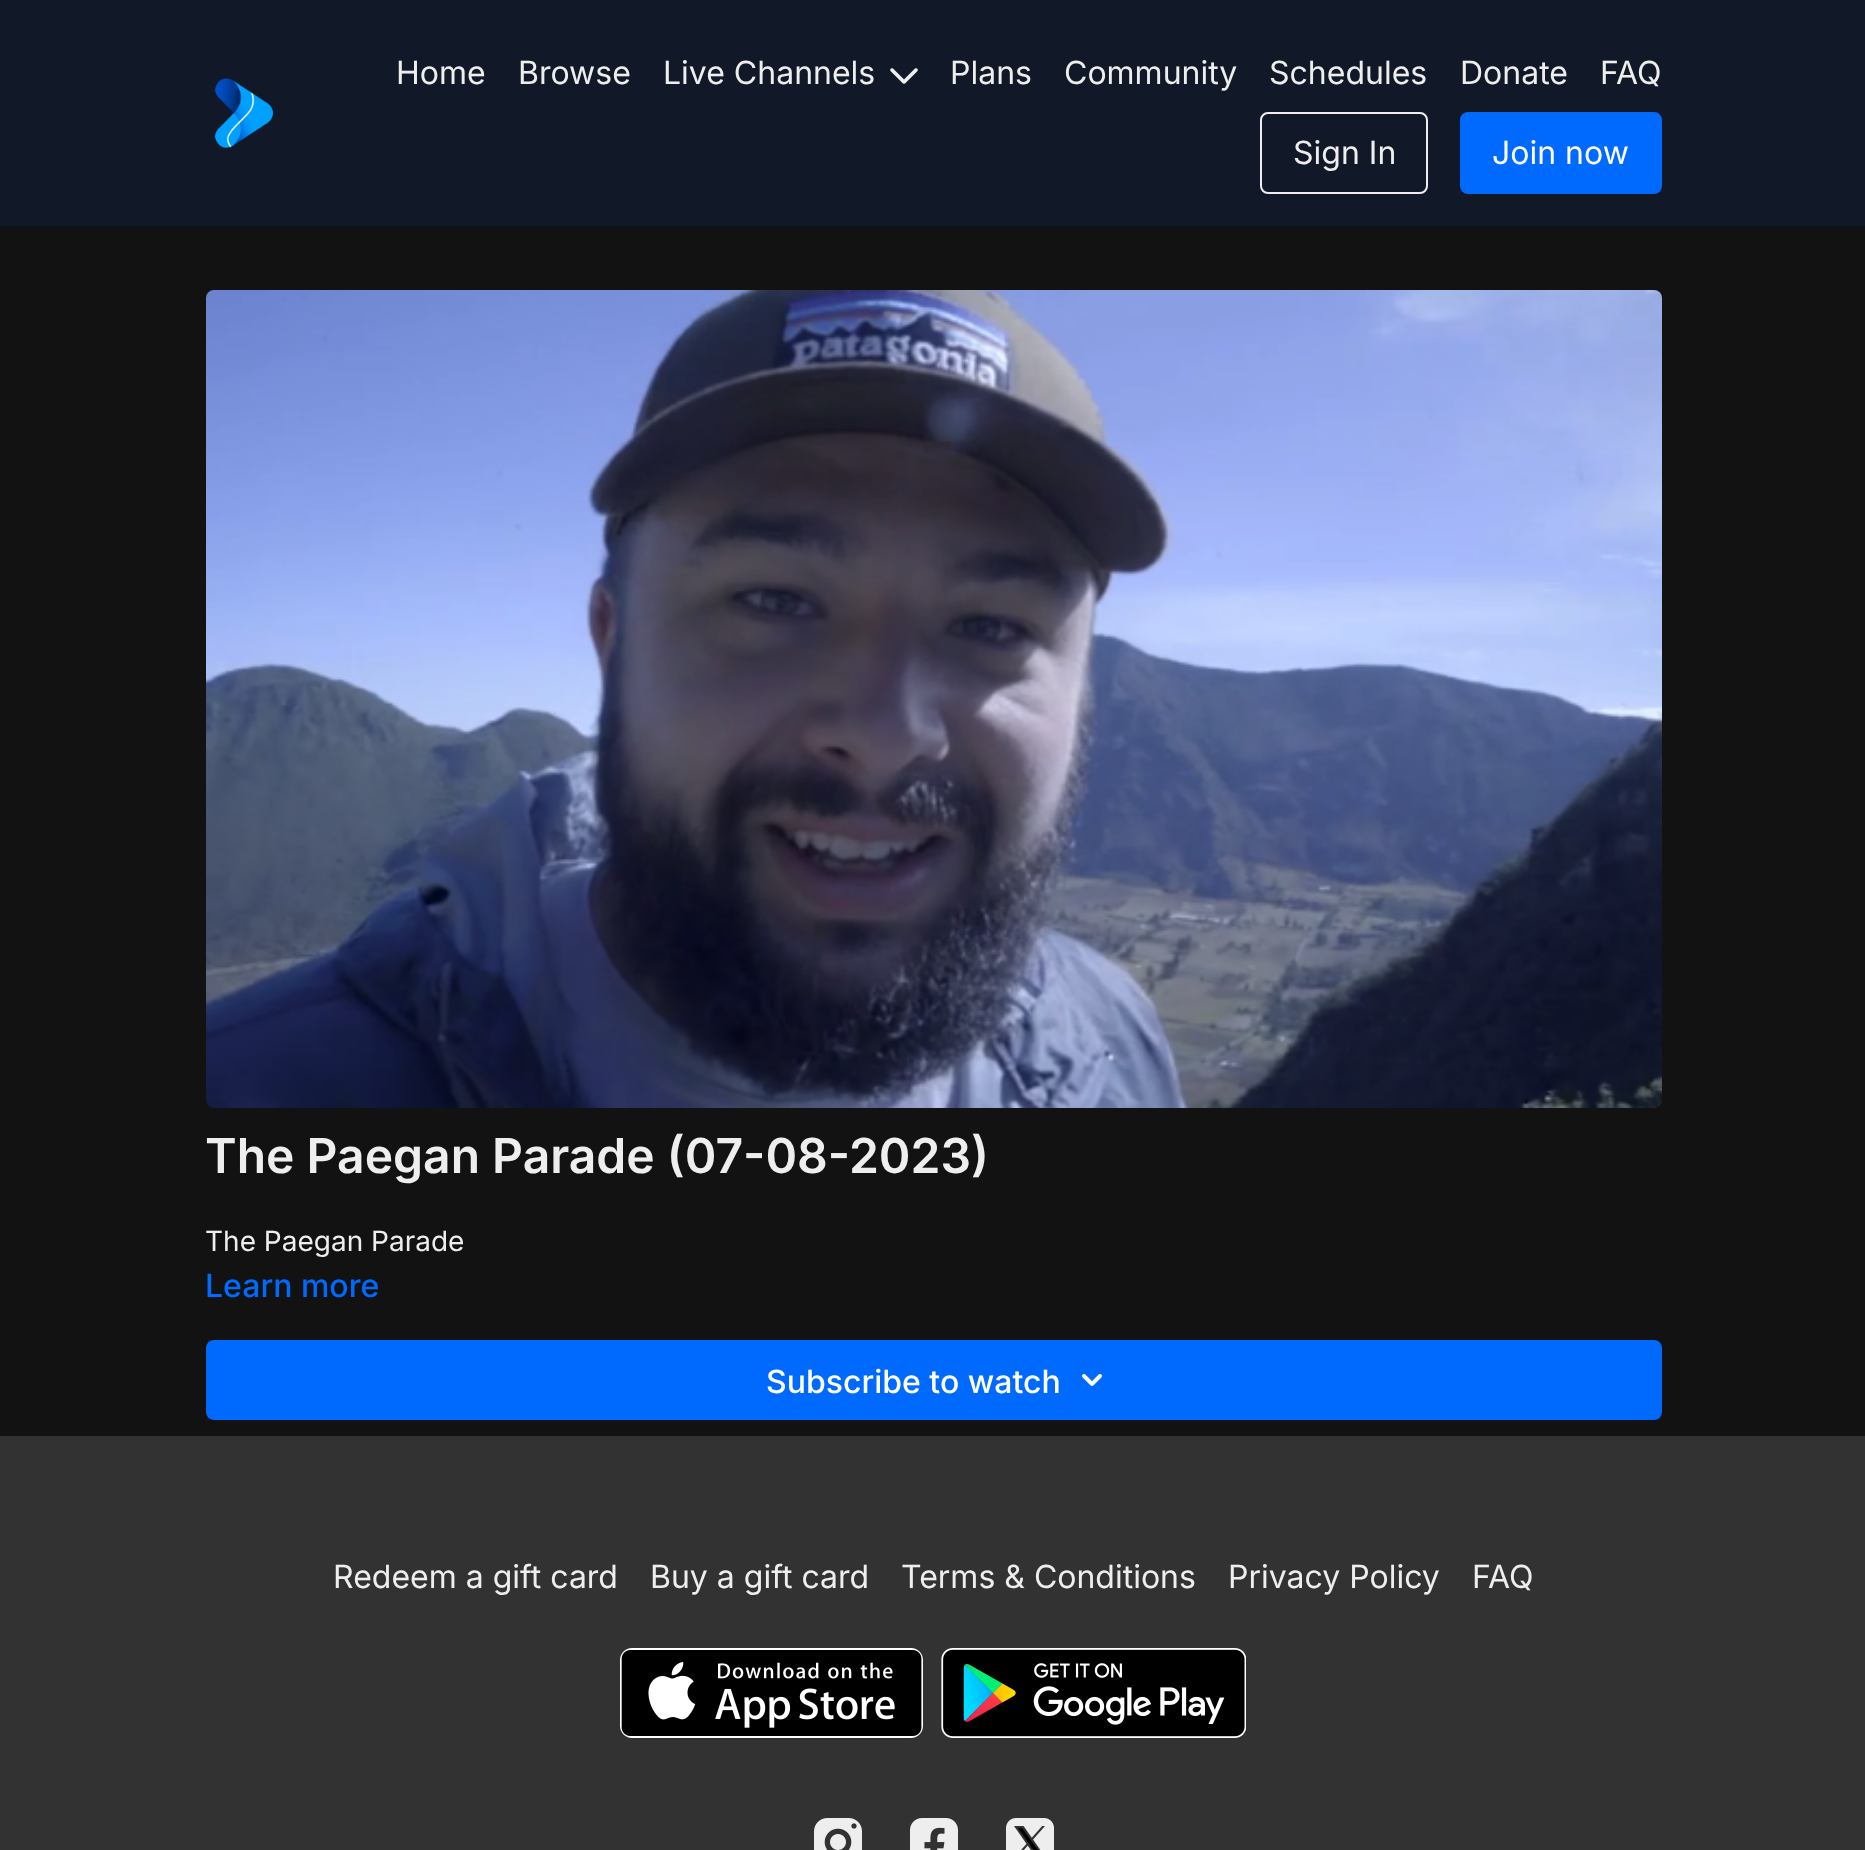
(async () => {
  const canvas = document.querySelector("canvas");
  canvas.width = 1865;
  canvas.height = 1850;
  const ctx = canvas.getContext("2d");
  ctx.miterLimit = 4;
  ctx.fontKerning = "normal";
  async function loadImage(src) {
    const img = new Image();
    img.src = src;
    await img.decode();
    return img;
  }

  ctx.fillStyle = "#121212";
  ctx.fillRect(0, 0, 1865, 1850);
  ctx.fillStyle = "#111827";
  ctx.fillRect(0, 0, 1865, 226);
  ctx.drawImage(await loadImage("img/1.png"), 214, 78, 60, 70);
  ctx.drawImage(await loadImage("img/2.png"), 890, 68, 28, 16);
  ctx.beginPath();
  ctx.roundRect(1261, 113, 166, 80, 7);
  ctx.strokeStyle = "#eeeeee";
  ctx.lineWidth = 2;
  ctx.stroke();
  ctx.fillStyle = "#006aff";
  ctx.beginPath();
  ctx.roundRect(1461, 113, 200, 80, 7);
  ctx.fill();
  ctx.strokeStyle = "#006aff";
  ctx.stroke();
  ctx.drawImage(await loadImage("img/3.png"), 206, 290, 1456, 818);
  ctx.beginPath();
  ctx.roundRect(206, 1340, 1456, 80, 8);
  ctx.fill();
  ctx.drawImage(await loadImage("img/4.png"), 1082, 1374, 20, 12);
  ctx.fillStyle = "#323232";
  ctx.fillRect(0, 1436, 1865, 414);
  ctx.drawImage(await loadImage("img/5.png"), 620, 1648, 303, 90);
  ctx.drawImage(await loadImage("img/6.png"), 941, 1648, 305, 90);
  ctx.drawImage(await loadImage("img/7.png"), 814, 1818, 48, 32);
  ctx.drawImage(await loadImage("img/8.png"), 910, 1818, 48, 32);
  ctx.drawImage(await loadImage("img/9.png"), 1006, 1818, 48, 32);
  ctx.font = "32px Inter";
  ctx.fillStyle = "#eeeeee";
  for (const [text, x, y] of [
    ["Home", 396, 84],
    ["Browse", 518, 84],
    ["Live Channels", 663, 84],
    ["Plans", 950, 84],
    ["Community", 1064, 84],
    ["Schedules", 1269, 84],
    ["Donate", 1460, 84],
    ["FAQ", 1600, 84],
    ["Sign In", 1293, 164],
  ]) {
    ctx.fillText(text, x, y);
  }
  ctx.fillStyle = "#ffffff";
  ctx.fillText("Join now", 1492, 164);
  ctx.font = "600 48px Inter";
  ctx.fillStyle = "#eeeeee";
  ctx.fillText("The Paegan Parade (07-08-2023)", 205, 1173);
  ctx.font = "28px Inter";
  ctx.fillText("The Paegan Parade", 205, 1251);
  ctx.font = "500 32px Inter";
  ctx.fillStyle = "#006aff";
  ctx.fillText("Learn more", 205, 1297);
  ctx.fillStyle = "#ffffff";
  ctx.fillText("Subscribe to watch", 766, 1393);
  ctx.font = "32px Inter";
  ctx.fillStyle = "#eeeeee";
  for (const [text, x, y] of [
    ["Redeem a gift card", 333, 1588],
    ["Buy a gift card", 650, 1588],
    ["Terms & Conditions", 901, 1588],
    ["Privacy Policy", 1228, 1588],
    ["FAQ", 1472, 1588],
  ]) {
    ctx.fillText(text, x, y);
  }
})();
